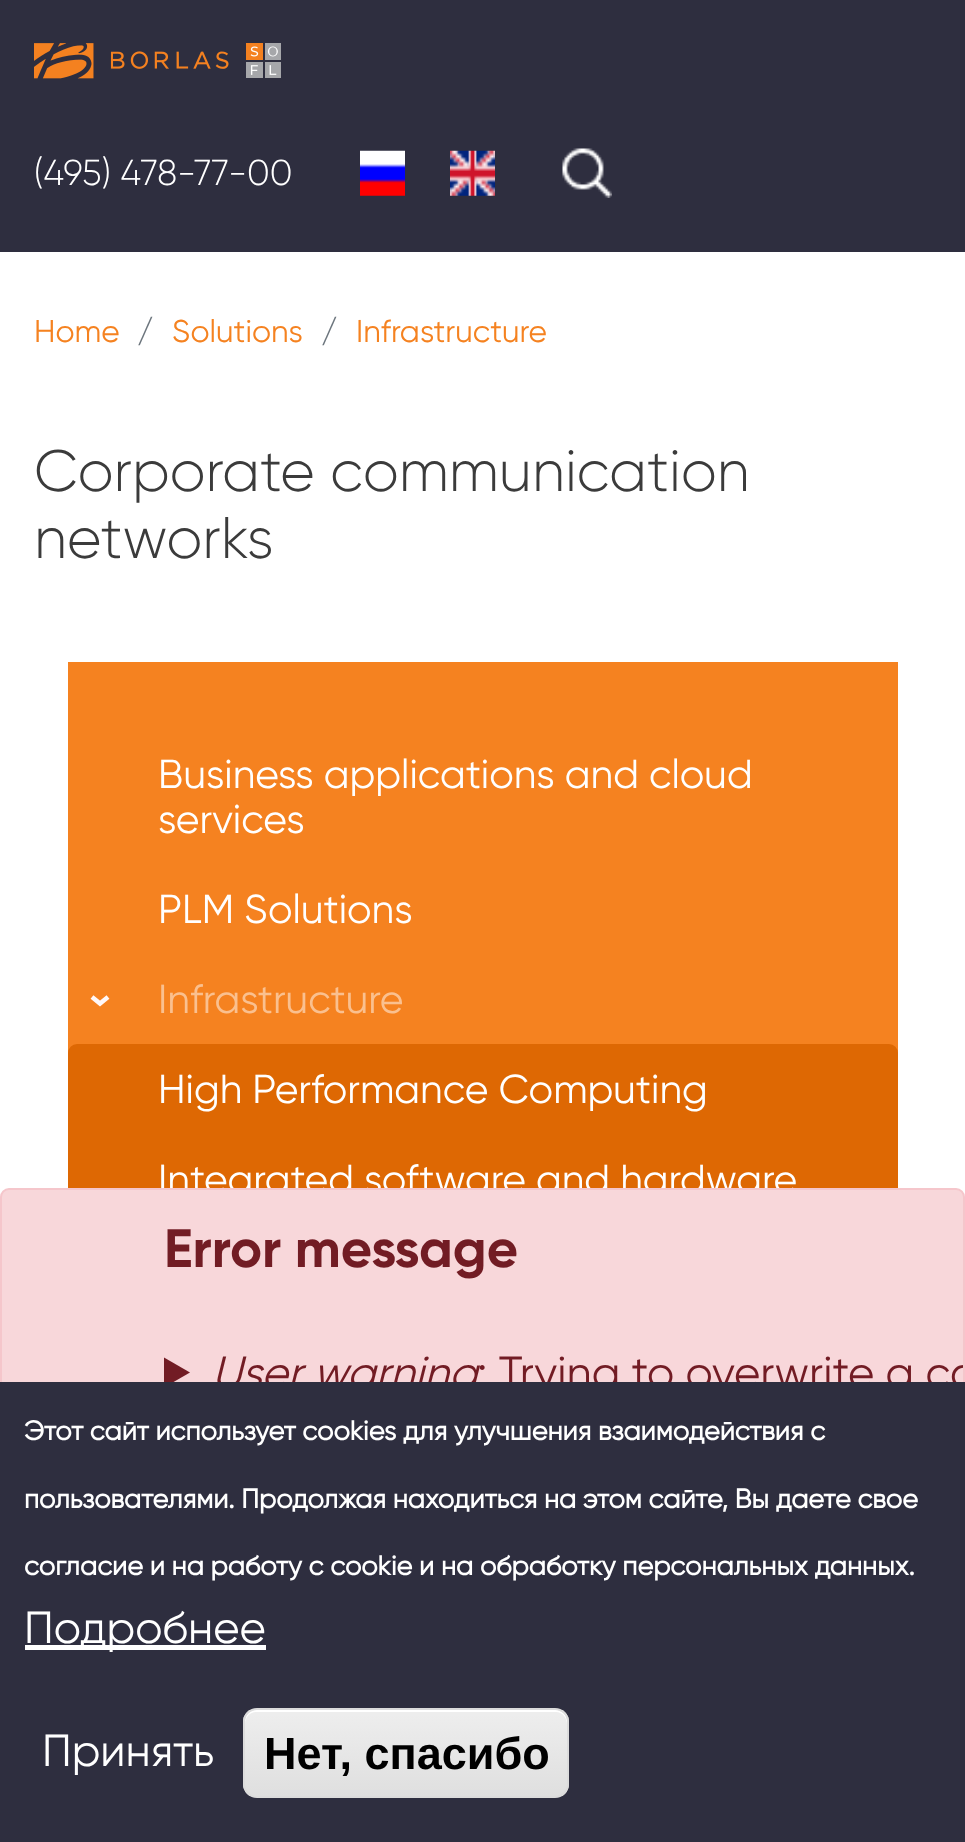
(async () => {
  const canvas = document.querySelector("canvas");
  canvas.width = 965;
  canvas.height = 1842;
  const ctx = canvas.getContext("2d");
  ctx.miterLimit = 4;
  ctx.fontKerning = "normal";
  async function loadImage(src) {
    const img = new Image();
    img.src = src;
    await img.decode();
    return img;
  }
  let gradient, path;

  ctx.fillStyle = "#ffffff";
  ctx.fillRect(0, 0, 965, 1842);
  ctx.fillStyle = "#2e2e3f";
  ctx.fillRect(0, 0, 965, 252);
  ctx.drawImage(await loadImage("img/1.png"), 34, 43, 247, 36);
  ctx.drawImage(await loadImage("img/2.png"), 360, 150, 45, 46);
  ctx.drawImage(await loadImage("img/3.png"), 450, 150, 45, 46);
  ctx.drawImage(await loadImage("img/4.png"), 562, 148, 50, 50);
  ctx.fillStyle = "#f58220";
  ctx.fillRect(68, 662, 830, 391);
  path = new Path2D("M108 997L100 1003.5L92 997");
  ctx.strokeStyle = "#fff8f8";
  ctx.lineWidth = 4.5;
  ctx.stroke(path);
  ctx.fillStyle = "#de6803";
  ctx.beginPath();
  ctx.roundRect(68, 1044, 830, 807, 9);
  ctx.fill();
  ctx.font = "300 36px Gilroy";
  ctx.fillStyle = "#ffffff";
  ctx.fillText("(495) 478-77-00", 34, 185);
  ctx.font = "31.5px Gilroy";
  ctx.fillStyle = "#f58220";
  ctx.fillText("Home", 34, 342);
  ctx.fillStyle = "#6c757d";
  ctx.fillText("/", 137, 342);
  ctx.fillStyle = "#f58220";
  ctx.fillText("Solutions", 172, 342);
  ctx.fillStyle = "#6c757d";
  ctx.fillText("/", 321, 342);
  ctx.fillStyle = "#f58220";
  ctx.fillText("Infrastructure", 356, 342);
  ctx.font = "300 58.5px Gilroy";
  ctx.fillStyle = "#3b3b3b";
  ctx.fillText("Corporate communication", 34, 491);
  ctx.fillText("networks", 34, 558);
  ctx.font = "40.5px Gilroy";
  ctx.fillStyle = "#ffffff";
  for (const [text, x, y] of [
    ["Business applications and cloud", 158, 788],
    ["services", 158, 833],
    ["PLM Solutions", 158, 923],
  ]) {
    ctx.fillText(text, x, y);
  }
  ctx.fillStyle = "#fac08f";
  ctx.fillText("Infrastructure", 158, 1013);
  ctx.fillStyle = "#ffffff";
  ctx.fillText("High Performance Computing", 158, 1103);
  ctx.fillText("Integrated software and hardware", 158, 1193);
  ctx.fillStyle = "#f8d7da";
  ctx.beginPath();
  ctx.roundRect(1, 1189, 963, 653, 8);
  ctx.fill();
  ctx.strokeStyle = "#f5c6cb";
  ctx.lineWidth = 2;
  ctx.stroke();
  ctx.font = "bold 54px Gilroy";
  ctx.fillStyle = "#721c24";
  ctx.fillText("Error message", 164, 1267);
  path = new Path2D("M164 1357.5L190 1372.5L164 1387.5Z");
  ctx.fill(path);
  ctx.font = "italic 45px Gilroy";
  ctx.fillText("User warning", 212, 1388);
  ctx.save();
  ctx.beginPath();
  ctx.roundRect(2, 1190, 961, 651, 7);
  ctx.clip();
  ctx.font = "45px Gilroy";
  ctx.fillText(": Trying to overwrite a ca", 477, 1388);
  ctx.restore();
  ctx.fillStyle = "#2e2e3f";
  ctx.fillRect(0, 1382, 965, 460);
  ctx.font = "bold 27px 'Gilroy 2'";
  ctx.fillStyle = "#ffffff";
  for (const [text, x, y] of [
    ["Этот сайт использует cookies для улучшения взаимодействия с", 24, 1440],
    ["пользователями. Продолжая находиться на этом сайте, Вы даете свое", 24, 1508],
    ["согласие и на работу с cookie и на обработку персональных данных.", 24, 1575],
  ]) {
    ctx.fillText(text, x, y);
  }
  ctx.fillRect(25, 1645, 241, 5);
  ctx.font = "45px Gilroy";
  ctx.fillText("Подробнее", 24, 1643);
  ctx.fillText("Принять", 42, 1766);
  ctx.save();
  ctx.beginPath();
  ctx.roundRect(243, 1708, 326, 90, 14);
  ctx.clip();
  gradient = ctx.createLinearGradient(406, 1710, 406, 1796);
  gradient.addColorStop(0.05, "#ededed");
  gradient.addColorStop(1, "#dfdfdf");
  ctx.fillStyle = gradient;
  ctx.fillRect(243, 1710, 326, 86);
  ctx.restore();
  path = new Path2D("M256 1712H556C562 1712 567 1717 567 1724V1721C567 1715 562 1710 556 1710H256C250 1710 245 1715 245 1721V1724C245 1717 250 1712 256 1712Z");
  ctx.fill(path);
  ctx.beginPath();
  ctx.roundRect(244, 1709, 324, 88, 13);
  ctx.strokeStyle = "#dcdcdc";
  ctx.stroke();
  ctx.font = "bold 45px Liberation Sans";
  ctx.fillStyle = "#000000";
  ctx.fillText("Нет, спасибо", 264, 1769);
})();
